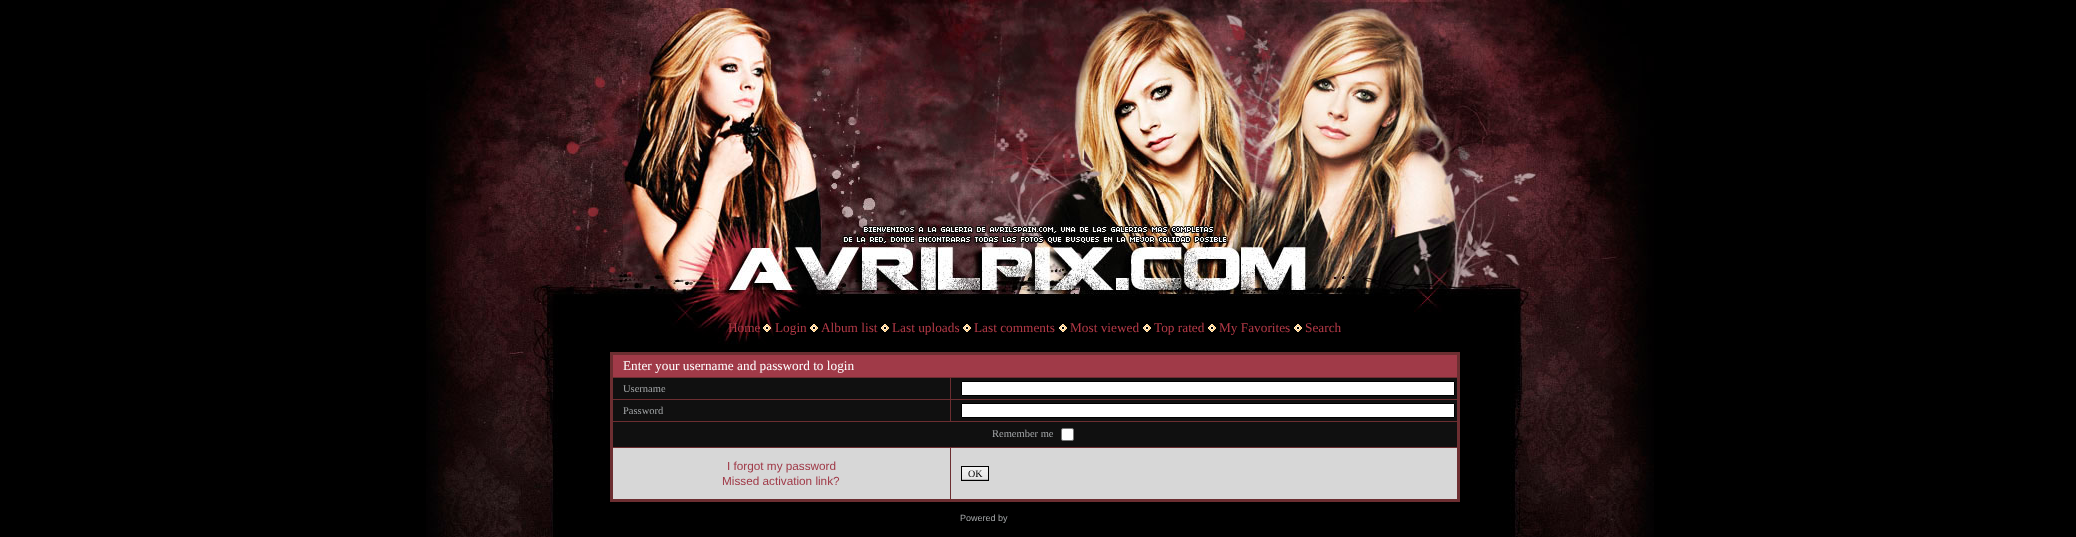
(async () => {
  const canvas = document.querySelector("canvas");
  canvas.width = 2076;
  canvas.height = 537;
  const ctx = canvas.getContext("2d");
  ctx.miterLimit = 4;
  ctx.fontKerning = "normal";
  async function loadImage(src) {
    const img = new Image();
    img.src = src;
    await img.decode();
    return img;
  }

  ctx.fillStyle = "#000000";
  ctx.fillRect(0, 0, 2076, 537);
  ctx.drawImage(await loadImage("img/1.png"), 426, 0, 1228, 537);
  ctx.drawImage(await loadImage("img/2.png"), 763, 324, 8, 8);
  ctx.drawImage(await loadImage("img/3.png"), 810, 324, 8, 8);
  ctx.drawImage(await loadImage("img/3.png"), 881, 324, 8, 8);
  ctx.drawImage(await loadImage("img/3.png"), 963, 324, 8, 8);
  ctx.drawImage(await loadImage("img/3.png"), 1059, 324, 8, 8);
  ctx.drawImage(await loadImage("img/3.png"), 1143, 324, 8, 8);
  ctx.drawImage(await loadImage("img/3.png"), 1208, 324, 8, 8);
  ctx.drawImage(await loadImage("img/3.png"), 1294, 324, 8, 8);
  for (const [x, y, w, h, color] of [
    [610, 352, 850, 150, "#6c2e31"],
    [613, 355, 844, 22, "#a03a48"],
    [613, 378, 337, 21, "#101010"],
    [951, 378, 506, 21, "#101010"],
  ]) {
    ctx.fillStyle = color;
    ctx.fillRect(x, y, w, h);
  }
  ctx.fillStyle = "#ffffff";
  ctx.beginPath();
  ctx.rect(961.5, 381.5, 493, 14);
  ctx.fill();
  ctx.strokeStyle = "#000000";
  ctx.stroke();
  ctx.fillStyle = "#101010";
  ctx.fillRect(613, 400, 337, 21);
  ctx.fillRect(951, 400, 506, 21);
  ctx.fillStyle = "#ffffff";
  ctx.beginPath();
  ctx.rect(961.5, 403.5, 493, 14);
  ctx.fill();
  ctx.stroke();
  ctx.fillStyle = "#101010";
  ctx.fillRect(613, 422, 844, 25);
  ctx.fillStyle = "#ffffff";
  ctx.beginPath();
  ctx.roundRect(1061.5, 428.5, 12, 12, 1.5);
  ctx.fill();
  ctx.strokeStyle = "#767676";
  ctx.stroke();
  ctx.fillStyle = "#d7d7d7";
  ctx.fillRect(613, 448, 337, 51);
  ctx.fillRect(951, 448, 506, 51);
  ctx.drawImage(await loadImage("img/4.png"), 962, 467, 26, 13);
  ctx.strokeStyle = "#000000";
  ctx.strokeRect(961.5, 466.5, 27, 14);
  ctx.font = "13.3px Liberation Serif";
  ctx.fillStyle = "#b53a48";
  for (const [text, x, y] of [
    ["Home", 728, 332],
    ["Login", 775, 332],
    ["Album list", 821, 332],
    ["Last uploads", 892, 332],
    ["Last comments", 974, 332],
    ["Most viewed", 1070, 332],
    ["Top rated", 1154, 332],
    ["My Favorites", 1219, 332],
    ["Search", 1305, 332],
  ]) {
    ctx.fillText(text, x, y);
  }
  ctx.fillStyle = "#ffffff";
  ctx.fillText("Enter your username and password to login", 623, 370);
  ctx.font = "10.5px Liberation Serif";
  ctx.fillStyle = "#a5a8aa";
  for (const [text, x, y] of [
    ["Username", 623, 392],
    ["Password", 623, 414],
    ["Remember me", 992, 437],
  ]) {
    ctx.fillText(text, x, y);
  }
  ctx.font = "11.75px Liberation Sans";
  ctx.fillStyle = "#a03a48";
  ctx.fillText("I forgot my password", 727, 470);
  ctx.fillText("Missed activation link?", 722, 485);
  ctx.font = "10px Liberation Serif";
  ctx.fillStyle = "#000000";
  ctx.fillText("OK", 968, 477);
  ctx.font = "9px Liberation Sans";
  ctx.fillStyle = "#a5a8aa";
  ctx.fillText("Powered by", 960, 521);
})();
